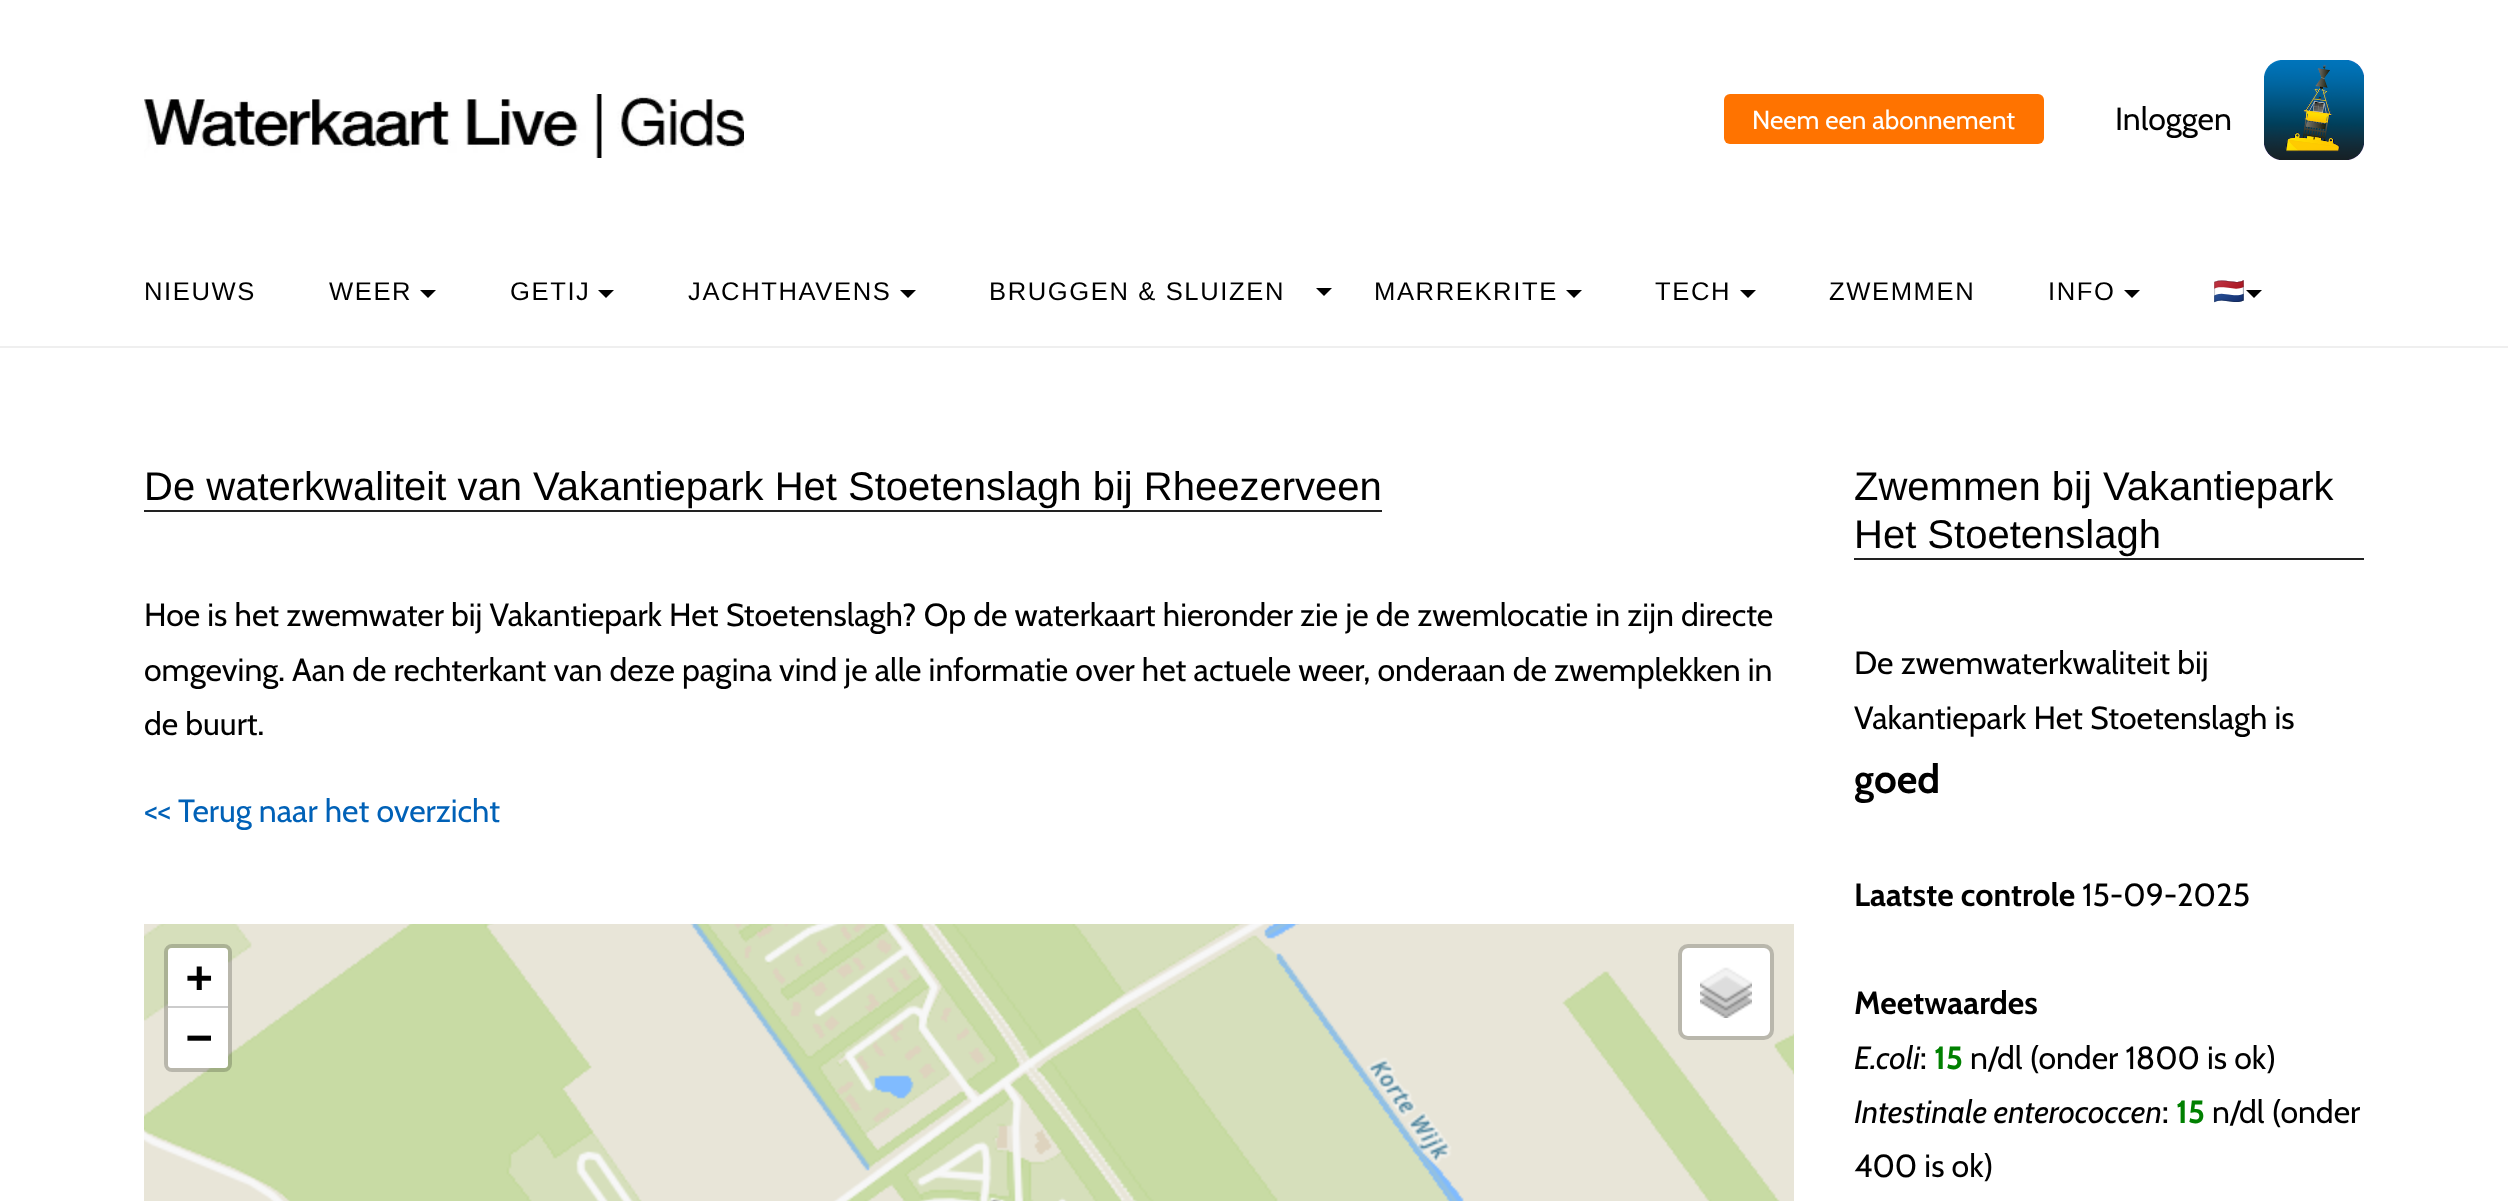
(async () => {
  const canvas = document.querySelector("canvas");
  canvas.width = 2508;
  canvas.height = 1201;
  const ctx = canvas.getContext("2d");
  ctx.miterLimit = 4;
  ctx.fontKerning = "normal";
  async function loadImage(src) {
    const img = new Image();
    img.src = src;
    await img.decode();
    return img;
  }
  let path;

  ctx.fillStyle = "#ffffff";
  ctx.fillRect(0, 0, 2508, 1201);
  ctx.drawImage(await loadImage("img/1.png"), 144, 94, 600, 64);
  ctx.fillStyle = "#ff7300";
  ctx.beginPath();
  ctx.roundRect(1724, 94, 320, 50, 6);
  ctx.fill();
  ctx.drawImage(await loadImage("img/2.png"), 2264, 60, 100, 100);
  ctx.fillStyle = "#efefef";
  ctx.fillRect(0, 346, 2508, 2);
  ctx.fillStyle = "#000000";
  path = new Path2D("M420 290H436L428 298Z");
  ctx.fill(path);
  path = new Path2D("M598 290H614L606 298Z");
  ctx.fill(path);
  path = new Path2D("M900 290H916L908 298Z");
  ctx.fill(path);
  path = new Path2D("M1316 288H1332L1324 296Z");
  ctx.fill(path);
  path = new Path2D("M1566 290H1582L1574 298Z");
  ctx.fill(path);
  path = new Path2D("M1740 290H1756L1748 298Z");
  ctx.fill(path);
  path = new Path2D("M2124 290H2140L2132 298Z");
  ctx.fill(path);
  path = new Path2D("M2246 290H2262L2254 298Z");
  ctx.fill(path);
  ctx.fillStyle = "#222222";
  ctx.fillRect(144, 510, 1238, 2);
  ctx.drawImage(await loadImage("img/3.png"), 144, 924, 1650, 277);
  ctx.beginPath();
  ctx.roundRect(166, 946, 64, 124, 6);
  ctx.strokeStyle = "rgba(0, 0, 0, 0.2)";
  ctx.lineWidth = 4;
  ctx.stroke();
  ctx.fillStyle = "#ffffff";
  ctx.beginPath();
  ctx.roundRect(168, 948, 60, 60, [4, 4, 0, 0]);
  ctx.fill();
  ctx.fillStyle = "#cccccc";
  ctx.fillRect(168, 1006, 60, 2);
  ctx.fillStyle = "#ffffff";
  ctx.beginPath();
  ctx.roundRect(168, 1008, 60, 60, [0, 0, 4, 4]);
  ctx.fill();
  ctx.beginPath();
  ctx.roundRect(1682, 948, 88, 88, 6);
  ctx.fill();
  ctx.beginPath();
  ctx.roundRect(1680, 946, 92, 92, 8);
  ctx.stroke();
  ctx.drawImage(await loadImage("img/4.png"), 1700, 967, 52, 51);
  ctx.fillStyle = "#222222";
  ctx.fillRect(1854, 558, 510, 2);
  ctx.font = "26px Cabin";
  ctx.fillStyle = "#ffffff";
  ctx.fillText("Neem een abonnement", 1752, 129);
  ctx.font = "32px Cabin";
  ctx.fillStyle = "#000000";
  ctx.fillText("Inloggen", 2115, 130);
  ctx.letterSpacing = "1.6px";
  ctx.font = "25.6px Liberation Sans";
  for (const [text, x, y] of [
    ["NIEUWS", 144, 300],
    ["WEER", 329, 300],
    ["GETIJ", 510, 300],
    ["JACHTHAVENS", 688, 300],
    ["BRUGGEN & SLUIZEN", 989, 300],
    ["MARREKRITE", 1374, 300],
    ["TECH", 1655, 300],
    ["ZWEMMEN", 1829, 300],
    ["INFO", 2048, 300],
  ]) {
    ctx.fillText(text, x, y);
  }
  ctx.font = "25.6px Noto Color Emoji";
  ctx.fillText("🇳🇱", 2213, 300);
  ctx.letterSpacing = "0px";
  ctx.font = "40px Liberation Sans";
  ctx.fillText("De waterkwaliteit van Vakantiepark Het Stoetenslagh bij Rheezerveen", 144, 500);
  ctx.font = "32px Cabin";
  for (const [text, x, y] of [
    ["Hoe is het zwemwater bij Vakantiepark Het Stoetenslagh? Op de waterkaart hieronder zie je de zwemlocatie in zijn directe", 144, 626],
    ["omgeving. Aan de rechterkant van deze pagina vind je alle informatie over het actuele weer, onderaan de zwemplekken in", 144, 681],
    ["de buurt.", 144, 735],
  ]) {
    ctx.fillText(text, x, y);
  }
  ctx.fillStyle = "#0061b7";
  ctx.fillText("<< Terug naar het overzicht", 144, 822);
  ctx.font = "bold 44px DejaVu Sans Mono";
  ctx.fillStyle = "#000000";
  ctx.fillText("+", 186, 992);
  ctx.fillText("−", 186, 1052);
  ctx.font = "40px Liberation Sans";
  ctx.fillText("Zwemmen bij Vakantiepark", 1854, 500);
  ctx.fillText("Het Stoetenslagh", 1854, 548);
  ctx.font = "32px Cabin";
  ctx.fillText("De zwemwaterkwaliteit bij", 1854, 674);
  ctx.fillText("Vakantiepark Het Stoetenslagh is", 1854, 729);
  ctx.font = "bold 40px Cabin";
  ctx.fillText("goed", 1854, 793);
  ctx.font = "bold 32px Cabin";
  ctx.fillText("Laatste controle", 1854, 906);
  ctx.font = "32px Cabin";
  ctx.fillText("15-09-2025", 2082, 906);
  ctx.font = "bold 32px Cabin";
  ctx.fillText("Meetwaardes", 1854, 1014);
  ctx.font = "italic 32px Cabin";
  ctx.fillText("E.coli", 1854, 1069);
  ctx.font = "32px Cabin";
  ctx.fillText(":", 1920, 1069);
  ctx.font = "bold 32px Cabin";
  ctx.fillStyle = "#008000";
  ctx.fillText("15", 1934, 1069);
  ctx.font = "32px Cabin";
  ctx.fillStyle = "#000000";
  ctx.fillText("n/dl (onder 1800 is ok)", 1970, 1069);
  ctx.font = "italic 32px Cabin";
  ctx.fillText("Intestinale enterococcen", 1854, 1123);
  ctx.font = "32px Cabin";
  ctx.fillText(":", 2162, 1123);
  ctx.font = "bold 32px Cabin";
  ctx.fillStyle = "#008000";
  ctx.fillText("15", 2176, 1123);
  ctx.font = "32px Cabin";
  ctx.fillStyle = "#000000";
  ctx.fillText("n/dl (onder", 2212, 1123);
  ctx.fillText("400 is ok)", 1854, 1177);
})();
